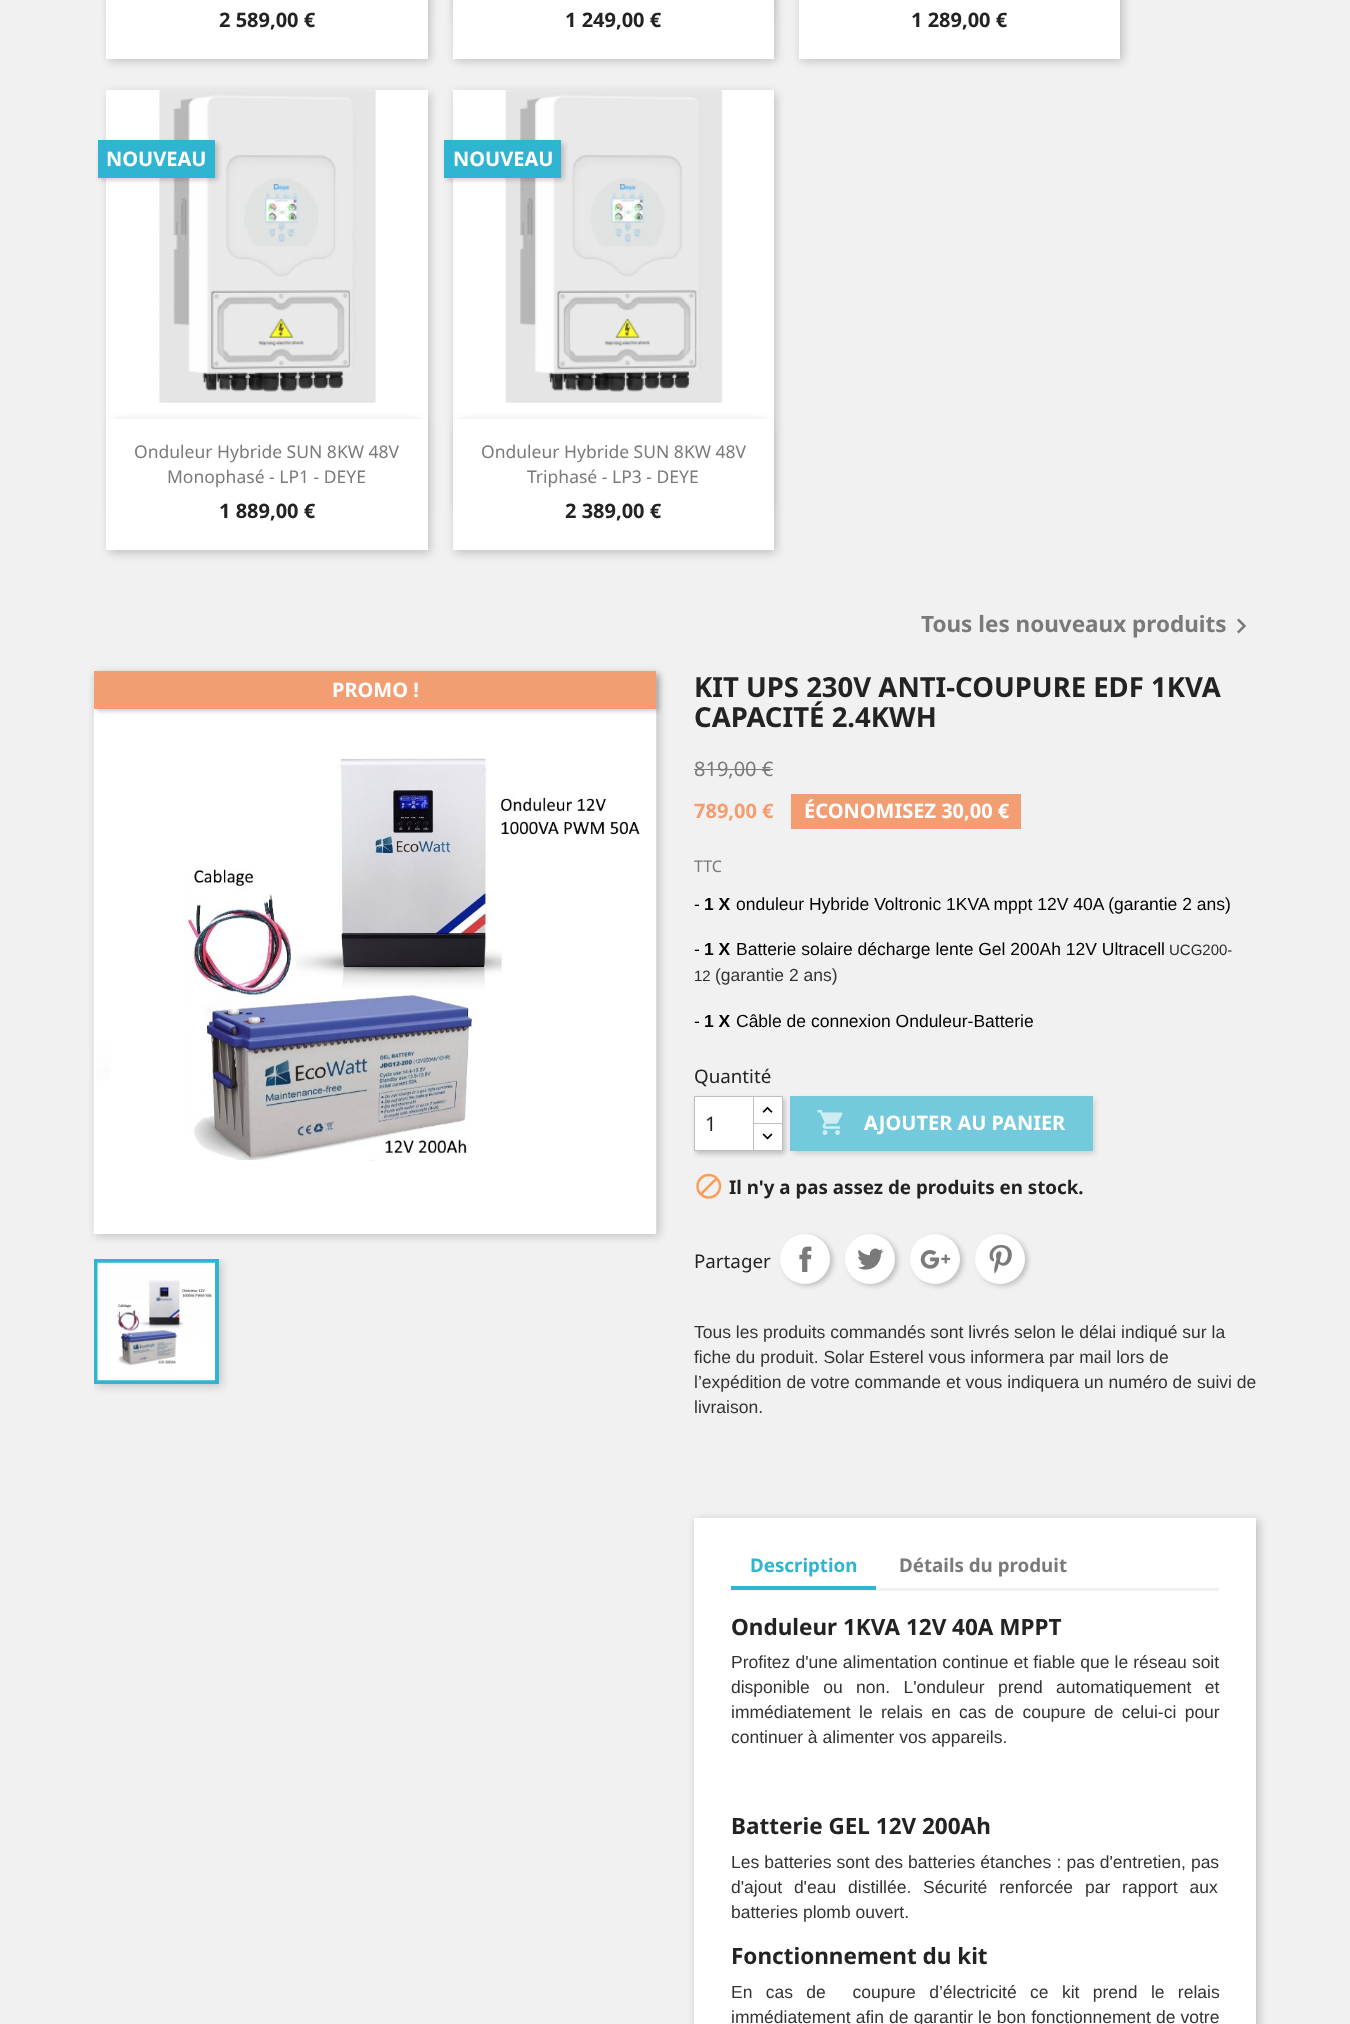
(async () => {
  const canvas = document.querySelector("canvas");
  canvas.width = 1350;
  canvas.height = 2024;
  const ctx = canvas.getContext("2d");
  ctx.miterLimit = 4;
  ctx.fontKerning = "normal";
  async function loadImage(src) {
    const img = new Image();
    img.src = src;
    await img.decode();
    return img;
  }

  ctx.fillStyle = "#f1f1f1";
  ctx.fillRect(0, 0, 1350, 2024);
  ctx.fillStyle = "rgba(0, 0, 0, 0.2)";
  ctx.filter = "blur(5px)";
  ctx.beginPath();
  ctx.rect(109, -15, 321, 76);
  ctx.fill();
  ctx.filter = "none";
  ctx.fillStyle = "#ffffff";
  ctx.fillRect(106, 34, 322, 25);
  ctx.fillStyle = "rgba(0, 0, 0, 0.2)";
  ctx.filter = "blur(6px)";
  ctx.beginPath();
  ctx.rect(113, -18, 308, 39);
  ctx.fill();
  ctx.filter = "none";
  ctx.fillStyle = "#ffffff";
  ctx.fillRect(106, 0, 322, 34);
  ctx.fillStyle = "rgba(0, 0, 0, 0.2)";
  ctx.filter = "blur(5px)";
  ctx.beginPath();
  ctx.rect(455, -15, 321, 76);
  ctx.fill();
  ctx.filter = "none";
  ctx.fillStyle = "#ffffff";
  ctx.fillRect(453, 34, 321, 25);
  ctx.fillStyle = "rgba(0, 0, 0, 0.2)";
  ctx.filter = "blur(6px)";
  ctx.beginPath();
  ctx.rect(459, -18, 309, 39);
  ctx.fill();
  ctx.filter = "none";
  ctx.fillStyle = "#ffffff";
  ctx.fillRect(453, 0, 321, 34);
  ctx.fillStyle = "rgba(0, 0, 0, 0.2)";
  ctx.filter = "blur(5px)";
  ctx.beginPath();
  ctx.rect(801, -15, 322, 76);
  ctx.fill();
  ctx.filter = "none";
  ctx.fillStyle = "#ffffff";
  ctx.fillRect(799, 0, 321, 59);
  ctx.fillStyle = "rgba(0, 0, 0, 0.2)";
  ctx.filter = "blur(5px)";
  ctx.beginPath();
  ctx.rect(109, 93, 321, 460);
  ctx.fill();
  ctx.filter = "none";
  ctx.fillStyle = "#ffffff";
  ctx.fillRect(106, 90, 322, 329);
  ctx.drawImage(await loadImage("img/1.png"), 159, 90, 217, 313);
  ctx.fillStyle = "rgba(0, 0, 0, 0.2)";
  ctx.filter = "blur(2.5px)";
  ctx.beginPath();
  ctx.rect(100, 143, 118, 37);
  ctx.fill();
  ctx.filter = "none";
  ctx.fillStyle = "#2fb5d2";
  ctx.fillRect(98, 140, 117, 38);
  ctx.fillStyle = "rgba(0, 0, 0, 0.2)";
  ctx.filter = "blur(6px)";
  ctx.beginPath();
  ctx.rect(113, 423, 308, 90);
  ctx.fill();
  ctx.filter = "none";
  ctx.fillStyle = "#ffffff";
  ctx.fillRect(106, 419, 322, 131);
  ctx.fillStyle = "rgba(0, 0, 0, 0.2)";
  ctx.filter = "blur(5px)";
  ctx.beginPath();
  ctx.rect(455, 93, 321, 460);
  ctx.fill();
  ctx.filter = "none";
  ctx.fillStyle = "#ffffff";
  ctx.fillRect(453, 90, 321, 329);
  ctx.drawImage(await loadImage("img/2.png"), 505, 90, 218, 313);
  ctx.fillStyle = "rgba(0, 0, 0, 0.2)";
  ctx.filter = "blur(2.5px)";
  ctx.beginPath();
  ctx.rect(446, 143, 118, 37);
  ctx.fill();
  ctx.filter = "none";
  ctx.fillStyle = "#2fb5d2";
  ctx.fillRect(444, 140, 117, 38);
  ctx.fillStyle = "rgba(0, 0, 0, 0.2)";
  ctx.filter = "blur(6px)";
  ctx.beginPath();
  ctx.rect(459, 423, 309, 90);
  ctx.fill();
  ctx.filter = "none";
  ctx.fillStyle = "#ffffff";
  ctx.fillRect(453, 419, 321, 131);
  ctx.drawImage(await loadImage("img/3.png"), 1237, 618, 10, 16);
  ctx.fillStyle = "rgba(0, 0, 0, 0.2)";
  ctx.filter = "blur(5px)";
  ctx.beginPath();
  ctx.rect(96, 674, 563, 562);
  ctx.fill();
  ctx.filter = "none";
  ctx.drawImage(await loadImage("img/4.png"), 93, 672, 564, 562);
  ctx.save();
  ctx.beginPath();
  ctx.rect(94, 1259, 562, 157);
  ctx.clip();
  ctx.filter = "blur(5px)";
  ctx.beginPath();
  ctx.rect(96, 1261, 125, 125);
  ctx.fill();
  ctx.filter = "none";
  ctx.restore();
  ctx.strokeStyle = "#2fb5d2";
  ctx.lineWidth = 4;
  ctx.strokeRect(96, 1261, 121, 121);
  ctx.drawImage(await loadImage("img/5.png"), 97, 1262, 118, 119);
  ctx.filter = "blur(2.5px)";
  ctx.beginPath();
  ctx.rect(96, 674, 563, 37);
  ctx.fill();
  ctx.filter = "none";
  for (const [x, y, w, h, color] of [
    [94, 671, 562, 38, "#f39d72"],
    [694, 769, 79, 1, "#7a7a7a"],
    [791, 794, 230, 35, "#f39d72"],
  ]) {
    ctx.fillStyle = color;
    ctx.fillRect(x, y, w, h);
  }
  ctx.fillStyle = "rgba(0, 0, 0, 0.2)";
  ctx.filter = "blur(2.5px)";
  ctx.beginPath();
  ctx.rect(696, 1099, 89, 55);
  ctx.fill();
  ctx.filter = "none";
  ctx.fillStyle = "#ffffff";
  ctx.fillRect(754, 1097, 28, 26);
  ctx.strokeStyle = "#bfbfbf";
  ctx.lineWidth = 1;
  ctx.strokeRect(753.5, 1096.5, 29, 28);
  ctx.beginPath();
  ctx.rect(753.5, 1123.5, 29, 27);
  ctx.fill();
  ctx.stroke();
  ctx.beginPath();
  ctx.rect(694.5, 1096.5, 59, 54);
  ctx.fill();
  ctx.stroke();
  ctx.drawImage(await loadImage("img/6.png"), 762, 1106, 11, 7);
  ctx.drawImage(await loadImage("img/7.png"), 762, 1133, 11, 7);
  ctx.fillStyle = "rgba(0, 0, 0, 0.13)";
  ctx.filter = "blur(2.5px)";
  ctx.beginPath();
  ctx.rect(793, 1099, 302, 55);
  ctx.fill();
  ctx.filter = "none";
  ctx.fillStyle = "#73cadd";
  ctx.fillRect(790, 1096, 303, 55);
  ctx.drawImage(await loadImage("img/8.png"), 817, 1110, 26, 25);
  ctx.drawImage(await loadImage("img/9.png"), 696, 1173, 26, 26);
  ctx.fillStyle = "rgba(0, 0, 0, 0.2)";
  ctx.filter = "blur(2.5px)";
  ctx.beginPath();
  ctx.roundRect(783, 1236, 50, 50, 25);
  ctx.fill();
  ctx.filter = "none";
  ctx.fillStyle = "#ffffff";
  ctx.beginPath();
  ctx.arc(805, 1259, 25, 0, Math.PI * 2);
  ctx.fill();
  ctx.drawImage(await loadImage("img/10.png"), 799, 1246, 13, 26);
  ctx.fillStyle = "rgba(0, 0, 0, 0.2)";
  ctx.filter = "blur(2.5px)";
  ctx.beginPath();
  ctx.roundRect(848, 1236, 50, 50, 25);
  ctx.fill();
  ctx.filter = "none";
  ctx.fillStyle = "#ffffff";
  ctx.beginPath();
  ctx.arc(870, 1259, 25, 0, Math.PI * 2);
  ctx.fill();
  ctx.drawImage(await loadImage("img/11.png"), 857, 1248, 27, 22);
  ctx.fillStyle = "rgba(0, 0, 0, 0.2)";
  ctx.filter = "blur(2.5px)";
  ctx.beginPath();
  ctx.roundRect(913, 1236, 50, 50, 25);
  ctx.fill();
  ctx.filter = "none";
  ctx.fillStyle = "#ffffff";
  ctx.beginPath();
  ctx.arc(935, 1259, 25, 0, Math.PI * 2);
  ctx.fill();
  ctx.drawImage(await loadImage("img/12.png"), 920, 1250, 31, 19);
  ctx.fillStyle = "rgba(0, 0, 0, 0.2)";
  ctx.filter = "blur(2.5px)";
  ctx.beginPath();
  ctx.roundRect(978, 1236, 50, 50, 25);
  ctx.fill();
  ctx.filter = "none";
  ctx.fillStyle = "#ffffff";
  ctx.beginPath();
  ctx.arc(1000, 1259, 25, 0, Math.PI * 2);
  ctx.fill();
  ctx.drawImage(await loadImage("img/13.png"), 989, 1245, 23, 29);
  ctx.fillStyle = "rgba(0, 0, 0, 0.2)";
  ctx.filter = "blur(5px)";
  ctx.beginPath();
  ctx.rect(696, 1520, 563, 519);
  ctx.fill();
  ctx.filter = "none";
  for (const [x, y, w, h, color] of [
    [694, 1518, 562, 506, "#ffffff"],
    [731, 1588, 488, 3, "#f1f1f1"],
    [731, 1586, 145, 4, "#2fb5d2"],
  ]) {
    ctx.fillStyle = color;
    ctx.fillRect(x, y, w, h);
  }
  ctx.font = "bold 20px Noto Sans";
  ctx.fillStyle = "#232323";
  for (const [text, x, y] of [
    ["2 589,00 €", 219, 27],
    ["1 249,00 €", 565, 27],
    ["1 289,00 €", 911, 27],
  ]) {
    ctx.fillText(text, x, y);
  }
  ctx.fillStyle = "#ffffff";
  ctx.fillText("NOUVEAU", 106, 166);
  ctx.font = "17.5px Noto Sans";
  ctx.fillStyle = "#7a7a7a";
  ctx.fillText("Onduleur Hybride SUN 8KW 48V", 134, 458);
  ctx.fillText("Monophasé - LP1 - DEYE", 167, 483);
  ctx.font = "bold 20px Noto Sans";
  ctx.fillStyle = "#232323";
  ctx.fillText("1 889,00 €", 219, 518);
  ctx.fillStyle = "#ffffff";
  ctx.fillText("NOUVEAU", 453, 166);
  ctx.font = "17.5px Noto Sans";
  ctx.fillStyle = "#7a7a7a";
  ctx.fillText("Onduleur Hybride SUN 8KW 48V", 481, 458);
  ctx.fillText("Triphasé - LP3 - DEYE", 527, 483);
  ctx.font = "bold 20px Noto Sans";
  ctx.fillStyle = "#232323";
  ctx.fillText("2 389,00 €", 565, 518);
  ctx.font = "bold 22.5px Noto Sans";
  ctx.fillStyle = "#7a7a7a";
  ctx.fillText("Tous les nouveaux produits", 921, 632);
  ctx.font = "bold 20px Noto Sans";
  ctx.fillStyle = "#ffffff";
  ctx.fillText("PROMO !", 332, 697);
  ctx.font = "bold 27.5px Noto Sans";
  ctx.fillStyle = "#232323";
  ctx.fillText("KIT UPS 230V ANTI-COUPURE EDF 1KVA", 694, 697);
  ctx.fillText("CAPACITÉ 2.4KWH", 694, 727);
  ctx.font = "20px Noto Sans";
  ctx.fillStyle = "#7a7a7a";
  ctx.fillText("819,00 €", 694, 776);
  ctx.font = "bold 20px Noto Sans";
  ctx.fillStyle = "#f39d72";
  ctx.fillText("789,00 €", 694, 818);
  ctx.fillStyle = "#ffffff";
  ctx.fillText("ÉCONOMISEZ 30,00 €", 804, 818);
  ctx.font = "16px Noto Sans";
  ctx.fillStyle = "#7a7a7a";
  ctx.fillText("TTC", 694, 872);
  ctx.font = "17.5px Liberation Sans";
  ctx.fillStyle = "#000000";
  ctx.fillText("-", 694, 910);
  ctx.font = "bold 17.5px Liberation Sans";
  ctx.fillText("1 X", 704, 910);
  ctx.font = "17.5px Liberation Sans";
  ctx.fillText("onduleur Hybride Voltronic 1KVA mppt 12V 40A (garantie 2 ans)", 736, 910);
  ctx.fillText("-", 694, 955);
  ctx.font = "bold 17.5px Liberation Sans";
  ctx.fillText("1 X", 704, 955);
  ctx.font = "17.5px Liberation Sans";
  ctx.fillText("Batterie solaire décharge lente Gel 200Ah 12V Ultracell", 736, 955);
  ctx.font = "15px Liberation Sans";
  ctx.fillStyle = "#2c2b2b";
  ctx.fillText("UCG200-", 1169, 955);
  ctx.fillText("12", 694, 981);
  ctx.font = "17.5px Liberation Sans";
  ctx.fillStyle = "#333333";
  ctx.fillText("(garantie 2 ans)", 715, 981);
  ctx.fillStyle = "#000000";
  ctx.fillText("-", 694, 1027);
  ctx.font = "bold 17.5px Liberation Sans";
  ctx.fillText("1 X", 704, 1027);
  ctx.font = "17.5px Liberation Sans";
  ctx.fillText("Câble de connexion Onduleur-Batterie", 736, 1027);
  ctx.font = "18.75px Noto Sans";
  ctx.fillStyle = "#232323";
  ctx.fillText("Quantité", 694, 1083);
  ctx.font = "20px Noto Sans";
  ctx.fillText("1", 705, 1131);
  ctx.font = "bold 20px Noto Sans";
  ctx.fillStyle = "#ffffff";
  ctx.fillText("AJOUTER AU PANIER", 864, 1130);
  ctx.font = "bold 18.75px Noto Sans";
  ctx.fillStyle = "#232323";
  ctx.fillText("Il n'y a pas assez de produits en stock.", 729, 1194);
  ctx.font = "18.75px Noto Sans";
  ctx.fillText("Partager", 694, 1268);
  ctx.font = "17.5px Liberation Sans";
  ctx.fillStyle = "#333333";
  for (const [text, x, y] of [
    ["Tous les produits commandés sont livrés selon le délai indiqué sur la", 694, 1338],
    ["fiche du produit. Solar Esterel vous informera par mail lors de", 694, 1363],
    ["l’expédition de votre commande et vous indiquera un numéro de suivi de", 694, 1388],
    ["livraison.", 694, 1413],
  ]) {
    ctx.fillText(text, x, y);
  }
  ctx.font = "bold 18.75px Noto Sans";
  ctx.fillStyle = "#2fb5d2";
  ctx.fillText("Description", 750, 1572);
  ctx.fillStyle = "#7a7a7a";
  ctx.fillText("Détails du produit", 899, 1572);
  ctx.font = "bold 22.5px Noto Sans";
  ctx.fillStyle = "#232323";
  ctx.fillText("Onduleur 1KVA 12V 40A MPPT", 731, 1635);
  ctx.wordSpacing = "0.25px";
  ctx.font = "17.5px Liberation Sans";
  ctx.fillStyle = "#333333";
  ctx.fillText("Profitez d'une alimentation continue et fiable que le réseau soit", 731, 1668);
  ctx.wordSpacing = "8.5px";
  ctx.fillText("disponible ou non. L'onduleur prend automatiquement et", 731, 1693);
  ctx.wordSpacing = "3.5px";
  ctx.fillText("immédiatement le relais en cas de coupure de celui-ci pour", 731, 1718);
  ctx.wordSpacing = "0px";
  ctx.fillText("continuer à alimenter vos appareils.", 731, 1743);
  ctx.font = "bold 22.5px Noto Sans";
  ctx.fillStyle = "#232323";
  ctx.fillText("Batterie GEL 12V 200Ah", 731, 1834);
  ctx.wordSpacing = "0.25px";
  ctx.font = "17.5px Liberation Sans";
  ctx.fillStyle = "#333333";
  ctx.fillText("Les batteries sont des batteries étanches : pas d'entretien, pas", 731, 1868);
  ctx.wordSpacing = "7px";
  ctx.fillText("d'ajout d'eau distillée. Sécurité renforcée par rapport aux", 731, 1893);
  ctx.wordSpacing = "0px";
  ctx.fillText("batteries plomb ouvert.", 731, 1918);
  ctx.font = "bold 22.5px Noto Sans";
  ctx.fillStyle = "#232323";
  ctx.fillText("Fonctionnement du kit", 731, 1964);
  ctx.wordSpacing = "8.5px";
  ctx.font = "17.5px Liberation Sans";
  ctx.fillStyle = "#333333";
  ctx.fillText("En cas de  coupure d’électricité ce kit prend le relais", 731, 1998);
  ctx.wordSpacing = "0.25px";
  ctx.fillText("immédiatement afin de garantir le bon fonctionnement de votre", 731, 2023);
})();
